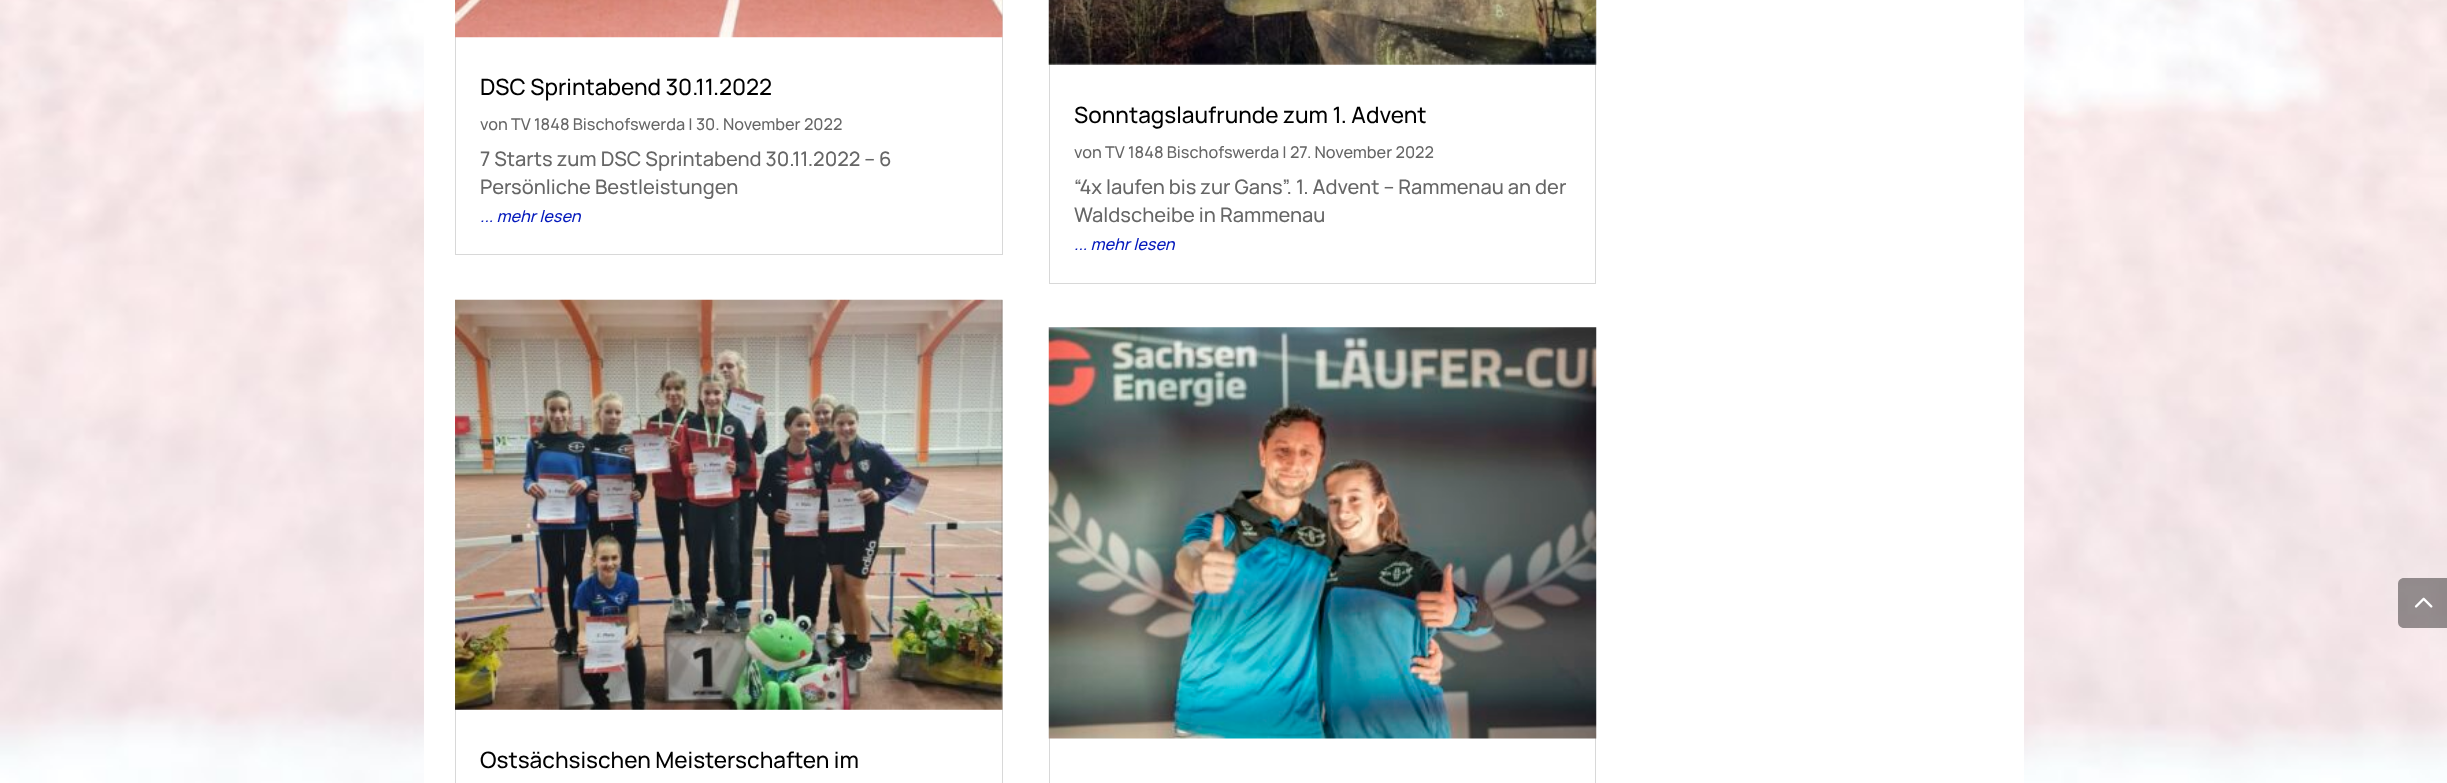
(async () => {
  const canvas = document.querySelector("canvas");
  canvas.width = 2447;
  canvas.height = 783;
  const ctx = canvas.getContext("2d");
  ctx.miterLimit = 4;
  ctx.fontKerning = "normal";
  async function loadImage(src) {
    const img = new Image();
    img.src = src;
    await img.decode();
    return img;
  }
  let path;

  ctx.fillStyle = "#ffffff";
  ctx.fillRect(0, 0, 2447, 783);
  ctx.drawImage(await loadImage("img/1.png"), 0, 0, 2447, 783);
  ctx.fillRect(424, 0, 1600, 783);
  ctx.strokeStyle = "#d8d8d8";
  ctx.strokeRect(455.5, -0.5, 547, 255);
  ctx.drawImage(await loadImage("img/2.png"), 455, 0, 548, 38);
  ctx.strokeRect(455.5, 300.5, 547, 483);
  ctx.drawImage(await loadImage("img/3.png"), 455, 299, 548, 411);
  ctx.strokeRect(1049.5, -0.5, 546, 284);
  ctx.drawImage(await loadImage("img/4.png"), 1048, 0, 549, 65);
  ctx.strokeRect(1049.5, 328.5, 546, 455);
  ctx.drawImage(await loadImage("img/5.png"), 1048, 327, 549, 412);
  ctx.fillStyle = "rgba(0, 0, 0, 0.4)";
  path = new Path2D("M2404 578H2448V628H2404C2400.5 628 2398 625.5 2398 622V584C2398 580.5 2400.5 578 2404 578Z");
  ctx.fill(path);
  ctx.drawImage(await loadImage("img/6.png"), 2414, 597, 19, 11);
  ctx.font = "500 22.5px Manrope";
  ctx.fillStyle = "#000000";
  ctx.fillText("DSC Sprintabend 30.11.2022", 480, 95);
  ctx.font = "500 16.25px Manrope";
  ctx.fillStyle = "#666666";
  ctx.fillText("von TV 1848 Bischofswerda | 30. November 2022", 480, 130);
  ctx.font = "500 20px Manrope";
  ctx.fillText("7 Starts zum DSC Sprintabend 30.11.2022 – 6", 480, 166);
  ctx.fillText("Persönliche Bestleistungen", 480, 194);
  ctx.font = "italic 500 16.25px Manrope";
  ctx.fillStyle = "#0419bc";
  ctx.fillText("... mehr lesen", 480, 222);
  ctx.font = "500 22.5px Manrope";
  ctx.fillStyle = "#000000";
  ctx.fillText("Ostsächsischen Meisterschaften im", 480, 768);
  ctx.fillText("Sonntagslaufrunde zum 1. Advent", 1074, 123);
  ctx.font = "500 16.25px Manrope";
  ctx.fillStyle = "#666666";
  ctx.fillText("von TV 1848 Bischofswerda | 27. November 2022", 1074, 158);
  ctx.font = "500 20px Manrope";
  ctx.fillText("“4x laufen bis zur Gans”. 1. Advent – Rammenau an der", 1074, 194);
  ctx.fillText("Waldscheibe in Rammenau", 1074, 222);
  ctx.font = "italic 500 16.25px Manrope";
  ctx.fillStyle = "#0419bc";
  ctx.fillText("... mehr lesen", 1074, 250);
})();
